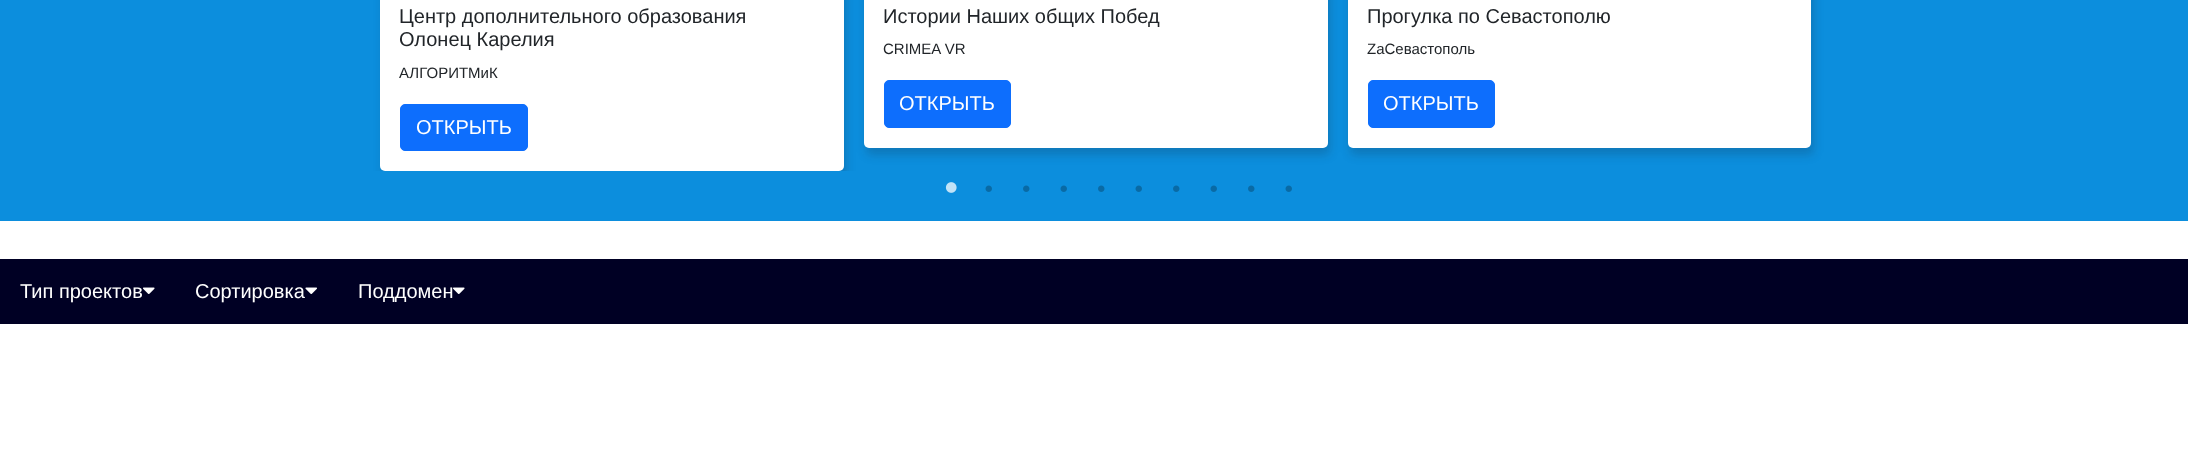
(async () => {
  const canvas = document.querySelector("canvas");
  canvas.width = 2188;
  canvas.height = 468;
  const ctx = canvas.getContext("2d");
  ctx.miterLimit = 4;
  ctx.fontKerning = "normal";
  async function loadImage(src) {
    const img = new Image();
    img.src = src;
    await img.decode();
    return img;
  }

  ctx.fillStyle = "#ffffff";
  ctx.fillRect(0, 0, 2188, 468);
  ctx.fillStyle = "#0c8edd";
  ctx.fillRect(0, 0, 2188, 221);
  ctx.save();
  ctx.beginPath();
  ctx.rect(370, 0, 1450, 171);
  ctx.clip();
  ctx.fillStyle = "rgba(22, 22, 26, 0.18)";
  ctx.filter = "blur(5px)";
  ctx.beginPath();
  ctx.roundRect(383, -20, 463, 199, 5);
  ctx.fill();
  ctx.filter = "none";
  ctx.restore();
  ctx.fillStyle = "#ffffff";
  ctx.beginPath();
  ctx.roundRect(380, -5, 464, 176, 5);
  ctx.fill();
  ctx.fillStyle = "#0d6efd";
  ctx.beginPath();
  ctx.roundRect(400.5, 104.5, 127, 46, 4.5);
  ctx.fill();
  ctx.strokeStyle = "#0d6efd";
  ctx.stroke();
  ctx.fillStyle = "rgba(22, 22, 26, 0.18)";
  ctx.filter = "blur(5px)";
  ctx.beginPath();
  ctx.roundRect(866, -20, 464, 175, 5);
  ctx.fill();
  ctx.filter = "none";
  ctx.fillStyle = "#ffffff";
  ctx.beginPath();
  ctx.roundRect(864, -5, 464, 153, 5);
  ctx.fill();
  ctx.fillStyle = "#0d6efd";
  ctx.beginPath();
  ctx.roundRect(884.5, 80.5, 126, 47, 4.5);
  ctx.fill();
  ctx.stroke();
  ctx.fillStyle = "rgba(22, 22, 26, 0.18)";
  ctx.filter = "blur(5px)";
  ctx.beginPath();
  ctx.roundRect(1350, -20, 464, 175, 5);
  ctx.fill();
  ctx.filter = "none";
  ctx.fillStyle = "#ffffff";
  ctx.beginPath();
  ctx.roundRect(1348, -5, 463, 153, 5);
  ctx.fill();
  ctx.fillStyle = "#0d6efd";
  ctx.beginPath();
  ctx.roundRect(1368.5, 80.5, 126, 47, 4.5);
  ctx.fill();
  ctx.stroke();
  ctx.drawImage(await loadImage("img/1.png"), 945, 182, 12, 11);
  ctx.drawImage(await loadImage("img/2.png"), 985, 185, 7, 7);
  ctx.drawImage(await loadImage("img/3.png"), 1023, 185, 7, 7);
  ctx.drawImage(await loadImage("img/2.png"), 1060, 185, 7, 7);
  ctx.drawImage(await loadImage("img/3.png"), 1098, 185, 7, 7);
  ctx.drawImage(await loadImage("img/2.png"), 1135, 185, 7, 7);
  ctx.drawImage(await loadImage("img/3.png"), 1173, 185, 7, 7);
  ctx.drawImage(await loadImage("img/2.png"), 1210, 185, 7, 7);
  ctx.drawImage(await loadImage("img/3.png"), 1248, 185, 7, 7);
  ctx.drawImage(await loadImage("img/2.png"), 1285, 185, 7, 7);
  ctx.fillStyle = "#000024";
  ctx.fillRect(0, 259, 2188, 65);
  ctx.drawImage(await loadImage("img/4.png"), 143, 287, 12, 7);
  ctx.drawImage(await loadImage("img/4.png"), 453, 287, 12, 7);
  ctx.font = "20px Liberation Sans";
  ctx.fillStyle = "#212529";
  ctx.fillText("Центр дополнительного образования", 399, 23);
  ctx.fillText("Олонец Карелия", 399, 46);
  ctx.font = "15px Liberation Sans";
  ctx.fillText("АЛГОРИТМиК", 399, 78);
  ctx.font = "20px Liberation Sans";
  ctx.fillStyle = "#ffffff";
  ctx.fillText("ОТКРЫТЬ", 416, 134);
  ctx.fillStyle = "#212529";
  ctx.fillText("Истории Наших общих Побед", 883, 23);
  ctx.font = "15px Liberation Sans";
  ctx.fillText("CRIMEA VR", 883, 54);
  ctx.font = "20px Liberation Sans";
  ctx.fillStyle = "#ffffff";
  ctx.fillText("ОТКРЫТЬ", 899, 110);
  ctx.fillStyle = "#212529";
  ctx.fillText("Прогулка по Севастополю", 1367, 23);
  ctx.font = "15px Liberation Sans";
  ctx.fillText("ZaСевастополь", 1367, 54);
  ctx.font = "20px Liberation Sans";
  ctx.fillStyle = "#ffffff";
  for (const [text, x, y] of [
    ["ОТКРЫТЬ", 1383, 110],
    ["Тип проектов", 20, 298],
    ["Сортировка", 195, 298],
  ]) {
    ctx.fillText(text, x, y);
  }
  ctx.drawImage(await loadImage("img/5.png"), 305, 287, 12, 7);
  ctx.fillText("Поддомен", 358, 298);
})();
